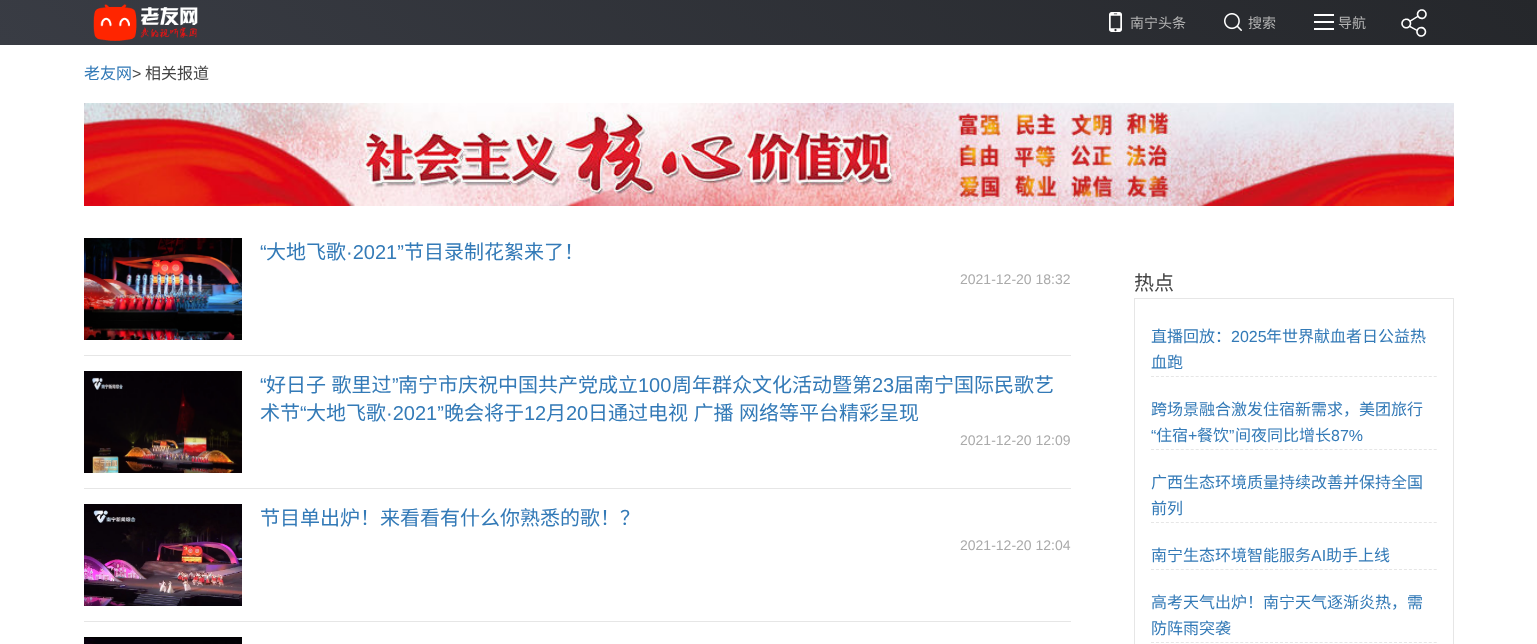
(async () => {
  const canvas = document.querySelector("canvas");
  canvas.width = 1537;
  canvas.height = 644;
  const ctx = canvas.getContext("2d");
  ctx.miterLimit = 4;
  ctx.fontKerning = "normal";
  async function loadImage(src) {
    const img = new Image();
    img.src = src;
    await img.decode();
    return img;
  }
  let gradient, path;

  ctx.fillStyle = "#ffffff";
  ctx.fillRect(0, 0, 1537, 644);
  gradient = ctx.createLinearGradient(373, 418, 1164, -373);
  gradient.addColorStop(0, "#393c44");
  gradient.addColorStop(1, "#25272b");
  ctx.fillStyle = gradient;
  ctx.fillRect(0, 0, 1537, 45);
  ctx.drawImage(await loadImage("img/1.png"), 93, 4, 105, 37);
  ctx.drawImage(await loadImage("img/2.png"), 1109, 12, 13, 20);
  ctx.drawImage(await loadImage("img/3.png"), 1224, 13, 18, 18);
  ctx.drawImage(await loadImage("img/4.png"), 1314, 14, 20, 16);
  ctx.drawImage(await loadImage("img/5.png"), 1401, 9, 26, 28);
  ctx.drawImage(await loadImage("img/6.png"), 84, 103, 1370, 103);
  ctx.fillStyle = "#e6e6e6";
  ctx.fillRect(84, 355, 987, 1);
  ctx.drawImage(await loadImage("img/7.png"), 84, 238, 158, 102);
  ctx.fillRect(84, 488, 987, 1);
  ctx.drawImage(await loadImage("img/8.png"), 84, 371, 158, 102);
  ctx.fillRect(84, 621, 987, 1);
  ctx.drawImage(await loadImage("img/9.png"), 84, 504, 158, 102);
  ctx.drawImage(await loadImage("img/10.png"), 84, 637, 158, 7);
  ctx.strokeStyle = "#e6e6e6";
  ctx.strokeRect(1134.5, 298.5, 319, 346);
  path = new Path2D("M1151 376.5H1437");
  ctx.setLineDash([3, 1.96]);
  ctx.stroke(path);
  path = new Path2D("M1151 449.5H1437");
  ctx.stroke(path);
  path = new Path2D("M1151 522.5H1437");
  ctx.stroke(path);
  path = new Path2D("M1151 569.5H1437");
  ctx.stroke(path);
  path = new Path2D("M1151 642.5H1437");
  ctx.stroke(path);
  ctx.font = "14px Noto Sans CJK SC";
  ctx.fillStyle = "#b3b3b3";
  for (const [text, x, y] of [
    ["南宁头条", 1130, 28],
    ["搜索", 1248, 28],
    ["导航", 1338, 28],
  ]) {
    ctx.fillText(text, x, y);
  }
  ctx.font = "16px Noto Sans CJK SC";
  ctx.fillStyle = "#337ab7";
  ctx.fillText("老友网", 84, 79);
  ctx.font = "16px Liberation Sans";
  ctx.fillStyle = "#454545";
  ctx.fillText(">", 132, 79);
  ctx.font = "16px Noto Sans CJK SC";
  ctx.fillText("相关报道", 145, 79);
  ctx.font = "20px Liberation Sans";
  ctx.fillStyle = "#337ab7";
  ctx.fillText("“", 260, 259);
  ctx.font = "20px Noto Sans CJK SC";
  ctx.fillText("大地飞歌", 266, 259);
  ctx.font = "20px Liberation Sans";
  ctx.fillText("·2021”", 346, 259);
  ctx.font = "20px Noto Sans CJK SC";
  ctx.fillText("节目录制花絮来了！", 404, 259);
  ctx.font = "14px Liberation Sans";
  ctx.fillStyle = "#aaaaaa";
  ctx.fillText("2021-12-20 18:32", 960, 284);
  ctx.font = "20px Liberation Sans";
  ctx.fillStyle = "#337ab7";
  ctx.fillText("“", 260, 392);
  ctx.wordSpacing = "1px";
  ctx.font = "20px Noto Sans CJK SC";
  ctx.fillText("好日子 歌里过", 266, 392);
  ctx.wordSpacing = "0px";
  ctx.font = "20px Liberation Sans";
  ctx.fillText("”", 392, 392);
  ctx.font = "20px Noto Sans CJK SC";
  ctx.fillText("南宁市庆祝中国共产党成立", 398, 392);
  ctx.font = "20px Liberation Sans";
  ctx.fillText("100", 638, 392);
  ctx.font = "20px Noto Sans CJK SC";
  ctx.fillText("周年群众文化活动暨第", 672, 392);
  ctx.font = "20px Liberation Sans";
  ctx.fillText("23", 872, 392);
  ctx.font = "20px Noto Sans CJK SC";
  ctx.fillText("届南宁国际民歌艺", 894, 392);
  ctx.fillText("术节", 260, 420);
  ctx.font = "20px Liberation Sans";
  ctx.fillText("“", 300, 420);
  ctx.font = "20px Noto Sans CJK SC";
  ctx.fillText("大地飞歌", 306, 420);
  ctx.font = "20px Liberation Sans";
  ctx.fillText("·2021”", 386, 420);
  ctx.font = "20px Noto Sans CJK SC";
  ctx.fillText("晚会将于", 444, 420);
  ctx.font = "20px Liberation Sans";
  ctx.fillText("12", 524, 420);
  ctx.font = "20px Noto Sans CJK SC";
  ctx.fillText("月", 546, 420);
  ctx.font = "20px Liberation Sans";
  ctx.fillText("20", 566, 420);
  ctx.wordSpacing = "1px";
  ctx.font = "20px Noto Sans CJK SC";
  ctx.fillText("日通过电视 广播 网络等平台精彩呈现", 588, 420);
  ctx.wordSpacing = "0px";
  ctx.font = "14px Liberation Sans";
  ctx.fillStyle = "#aaaaaa";
  ctx.fillText("2021-12-20 12:09", 960, 445);
  ctx.font = "20px Noto Sans CJK SC";
  ctx.fillStyle = "#337ab7";
  ctx.fillText("节目单出炉！来看看有什么你熟悉的歌！？", 260, 525);
  ctx.font = "14px Liberation Sans";
  ctx.fillStyle = "#aaaaaa";
  ctx.fillText("2021-12-20 12:04", 960, 550);
  ctx.font = "20px Noto Sans CJK SC";
  ctx.fillStyle = "#454545";
  ctx.fillText("热点", 1134, 290);
  ctx.font = "16px Noto Sans CJK SC";
  ctx.fillStyle = "#337ab7";
  ctx.fillText("直播回放：", 1151, 342);
  ctx.font = "16px Liberation Sans";
  ctx.fillText("2025", 1231, 342);
  ctx.font = "16px Noto Sans CJK SC";
  for (const [text, x, y] of [
    ["年世界献血者日公益热", 1266, 342],
    ["血跑", 1151, 368],
    ["跨场景融合激发住宿新需求，美团旅行", 1151, 415],
  ]) {
    ctx.fillText(text, x, y);
  }
  ctx.font = "16px Liberation Sans";
  ctx.fillText("“", 1151, 441);
  ctx.font = "16px Noto Sans CJK SC";
  ctx.fillText("住宿", 1156, 441);
  ctx.font = "16px Liberation Sans";
  ctx.fillText("+", 1188, 441);
  ctx.font = "16px Noto Sans CJK SC";
  ctx.fillText("餐饮", 1197, 441);
  ctx.font = "16px Liberation Sans";
  ctx.fillText("”", 1229, 441);
  ctx.font = "16px Noto Sans CJK SC";
  ctx.fillText("间夜同比增长", 1235, 441);
  ctx.font = "16px Liberation Sans";
  ctx.fillText("87%", 1331, 441);
  ctx.font = "16px Noto Sans CJK SC";
  for (const [text, x, y] of [
    ["广西生态环境质量持续改善并保持全国", 1151, 488],
    ["前列", 1151, 514],
    ["南宁生态环境智能服务", 1151, 561],
  ]) {
    ctx.fillText(text, x, y);
  }
  ctx.font = "16px Liberation Sans";
  ctx.fillText("AI", 1311, 561);
  ctx.font = "16px Noto Sans CJK SC";
  for (const [text, x, y] of [
    ["助手上线", 1326, 561],
    ["高考天气出炉！南宁天气逐渐炎热，需", 1151, 608],
    ["防阵雨突袭", 1151, 634],
  ]) {
    ctx.fillText(text, x, y);
  }
})();
